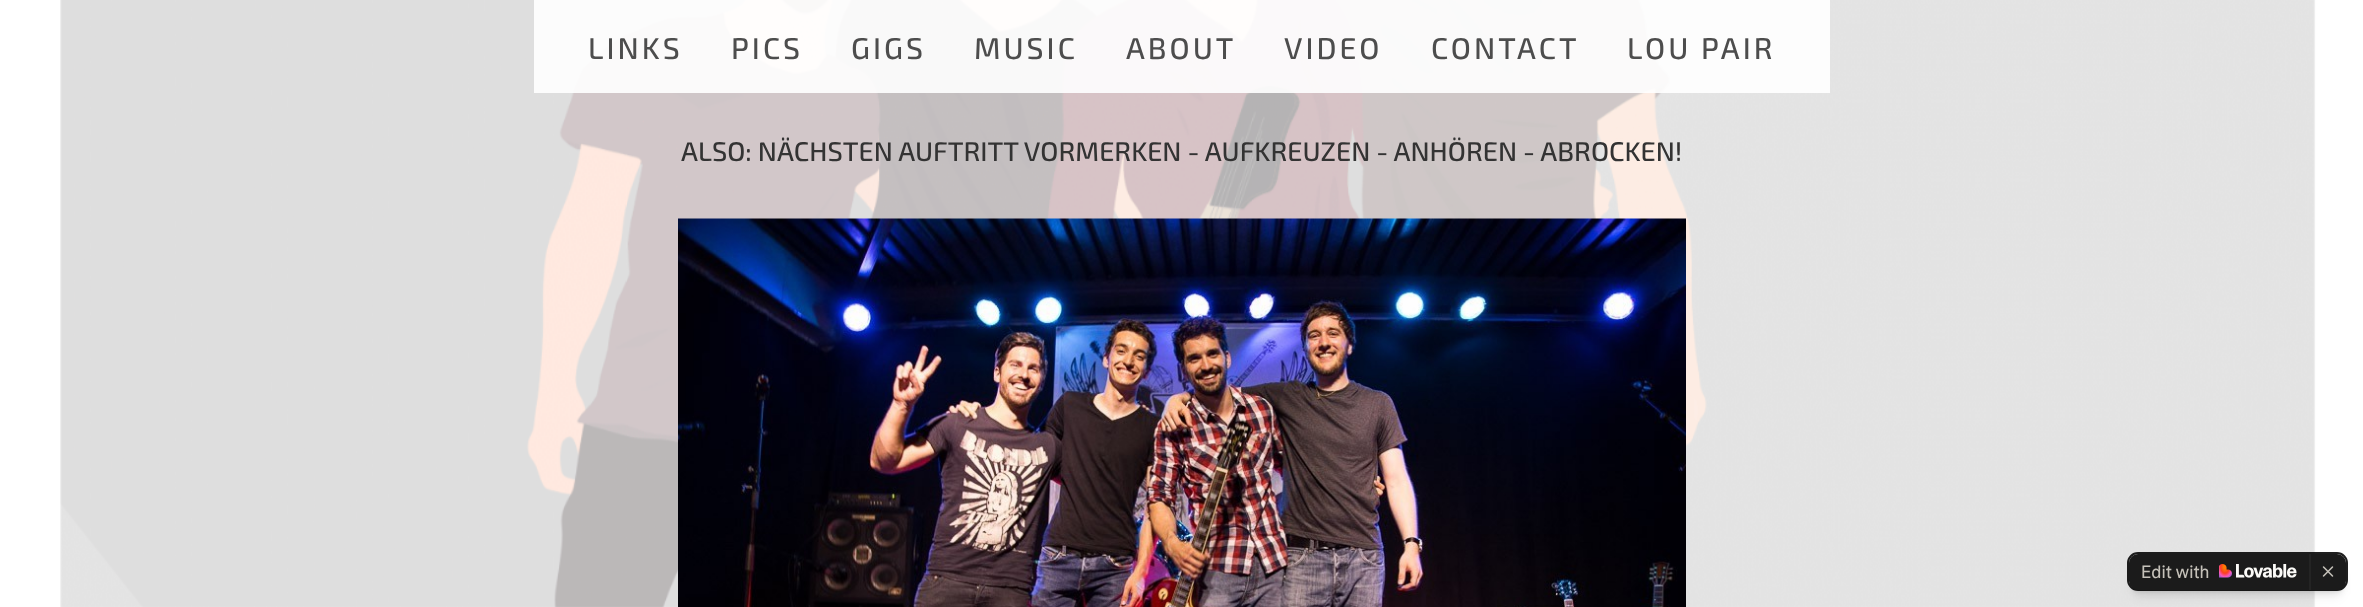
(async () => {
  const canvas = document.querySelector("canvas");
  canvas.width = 2363;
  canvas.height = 607;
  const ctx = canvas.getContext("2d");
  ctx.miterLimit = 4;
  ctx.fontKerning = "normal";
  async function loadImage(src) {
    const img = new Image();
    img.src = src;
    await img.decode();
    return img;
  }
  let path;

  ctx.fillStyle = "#ffffff";
  ctx.fillRect(0, 0, 2363, 607);
  ctx.drawImage(await loadImage("img/1.png"), 60, 0, 2256, 607);
  ctx.fillStyle = "rgba(255, 255, 255, 0.9)";
  ctx.fillRect(534, 0, 1296, 93);
  ctx.drawImage(await loadImage("img/2.png"), 678, 218, 1008, 389);
  ctx.fillStyle = "rgba(0, 0, 0, 0.08)";
  ctx.filter = "blur(6px)";
  ctx.beginPath();
  ctx.roundRect(2135, 572, 205, 24, 3);
  ctx.fill();
  ctx.filter = "none";
  ctx.filter = "blur(3px)";
  ctx.beginPath();
  ctx.roundRect(2132, 563, 211, 30, 6);
  ctx.fill();
  ctx.filter = "none";
  ctx.filter = "blur(1.5px)";
  ctx.beginPath();
  ctx.roundRect(2130, 558, 215, 33, 8);
  ctx.fill();
  ctx.filter = "none";
  ctx.fillStyle = "rgba(0, 0, 0, 0.04)";
  path = new Path2D("M2129 584C2130 588 2134 591 2138 591H2337C2342 591 2346 587 2346 582V580C2346 585 2342 590 2337 590H2138C2134 590 2131 587 2129 584Z");
  ctx.fill(path);
  ctx.beginPath();
  ctx.roundRect(2128, 553, 219, 37, 10);
  ctx.strokeStyle = "rgba(0, 0, 0, 0.88)";
  ctx.lineWidth = 2;
  ctx.stroke();
  ctx.fillStyle = "#1b1b1b";
  ctx.beginPath();
  ctx.roundRect(2129, 554, 217, 36, 9);
  ctx.fill();
  ctx.drawImage(await loadImage("img/3.png"), 2219, 564, 78, 14);
  ctx.fillStyle = "#242424";
  ctx.fillRect(2309, 554, 2, 36);
  ctx.drawImage(await loadImage("img/4.png"), 2322, 566, 12, 11);
  ctx.letterSpacing = "3px";
  ctx.font = "500 30px 'Exo 2'";
  ctx.fillStyle = "#4d4d4d";
  for (const [text, x, y] of [
    ["LINKS", 588, 59],
    ["PICS", 731, 59],
    ["GIGS", 851, 59],
    ["MUSIC", 974, 59],
    ["ABOUT", 1126, 59],
    ["VIDEO", 1284, 59],
    ["CONTACT", 1431, 59],
    ["LOU PAIR", 1627, 59],
  ]) {
    ctx.fillText(text, x, y);
  }
  ctx.letterSpacing = "0px";
  ctx.font = "500 27px 'Exo 2'";
  ctx.fillStyle = "#333333";
  ctx.fillText("ALSO: NÄCHSTEN AUFTRITT VORMERKEN - AUFKREUZEN - ANHÖREN - ABROCKEN!", 681, 161);
  ctx.font = "18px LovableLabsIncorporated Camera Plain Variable";
  ctx.fillStyle = "#c5c1b9";
  ctx.fillText("Edit with", 2141, 578);
})();
